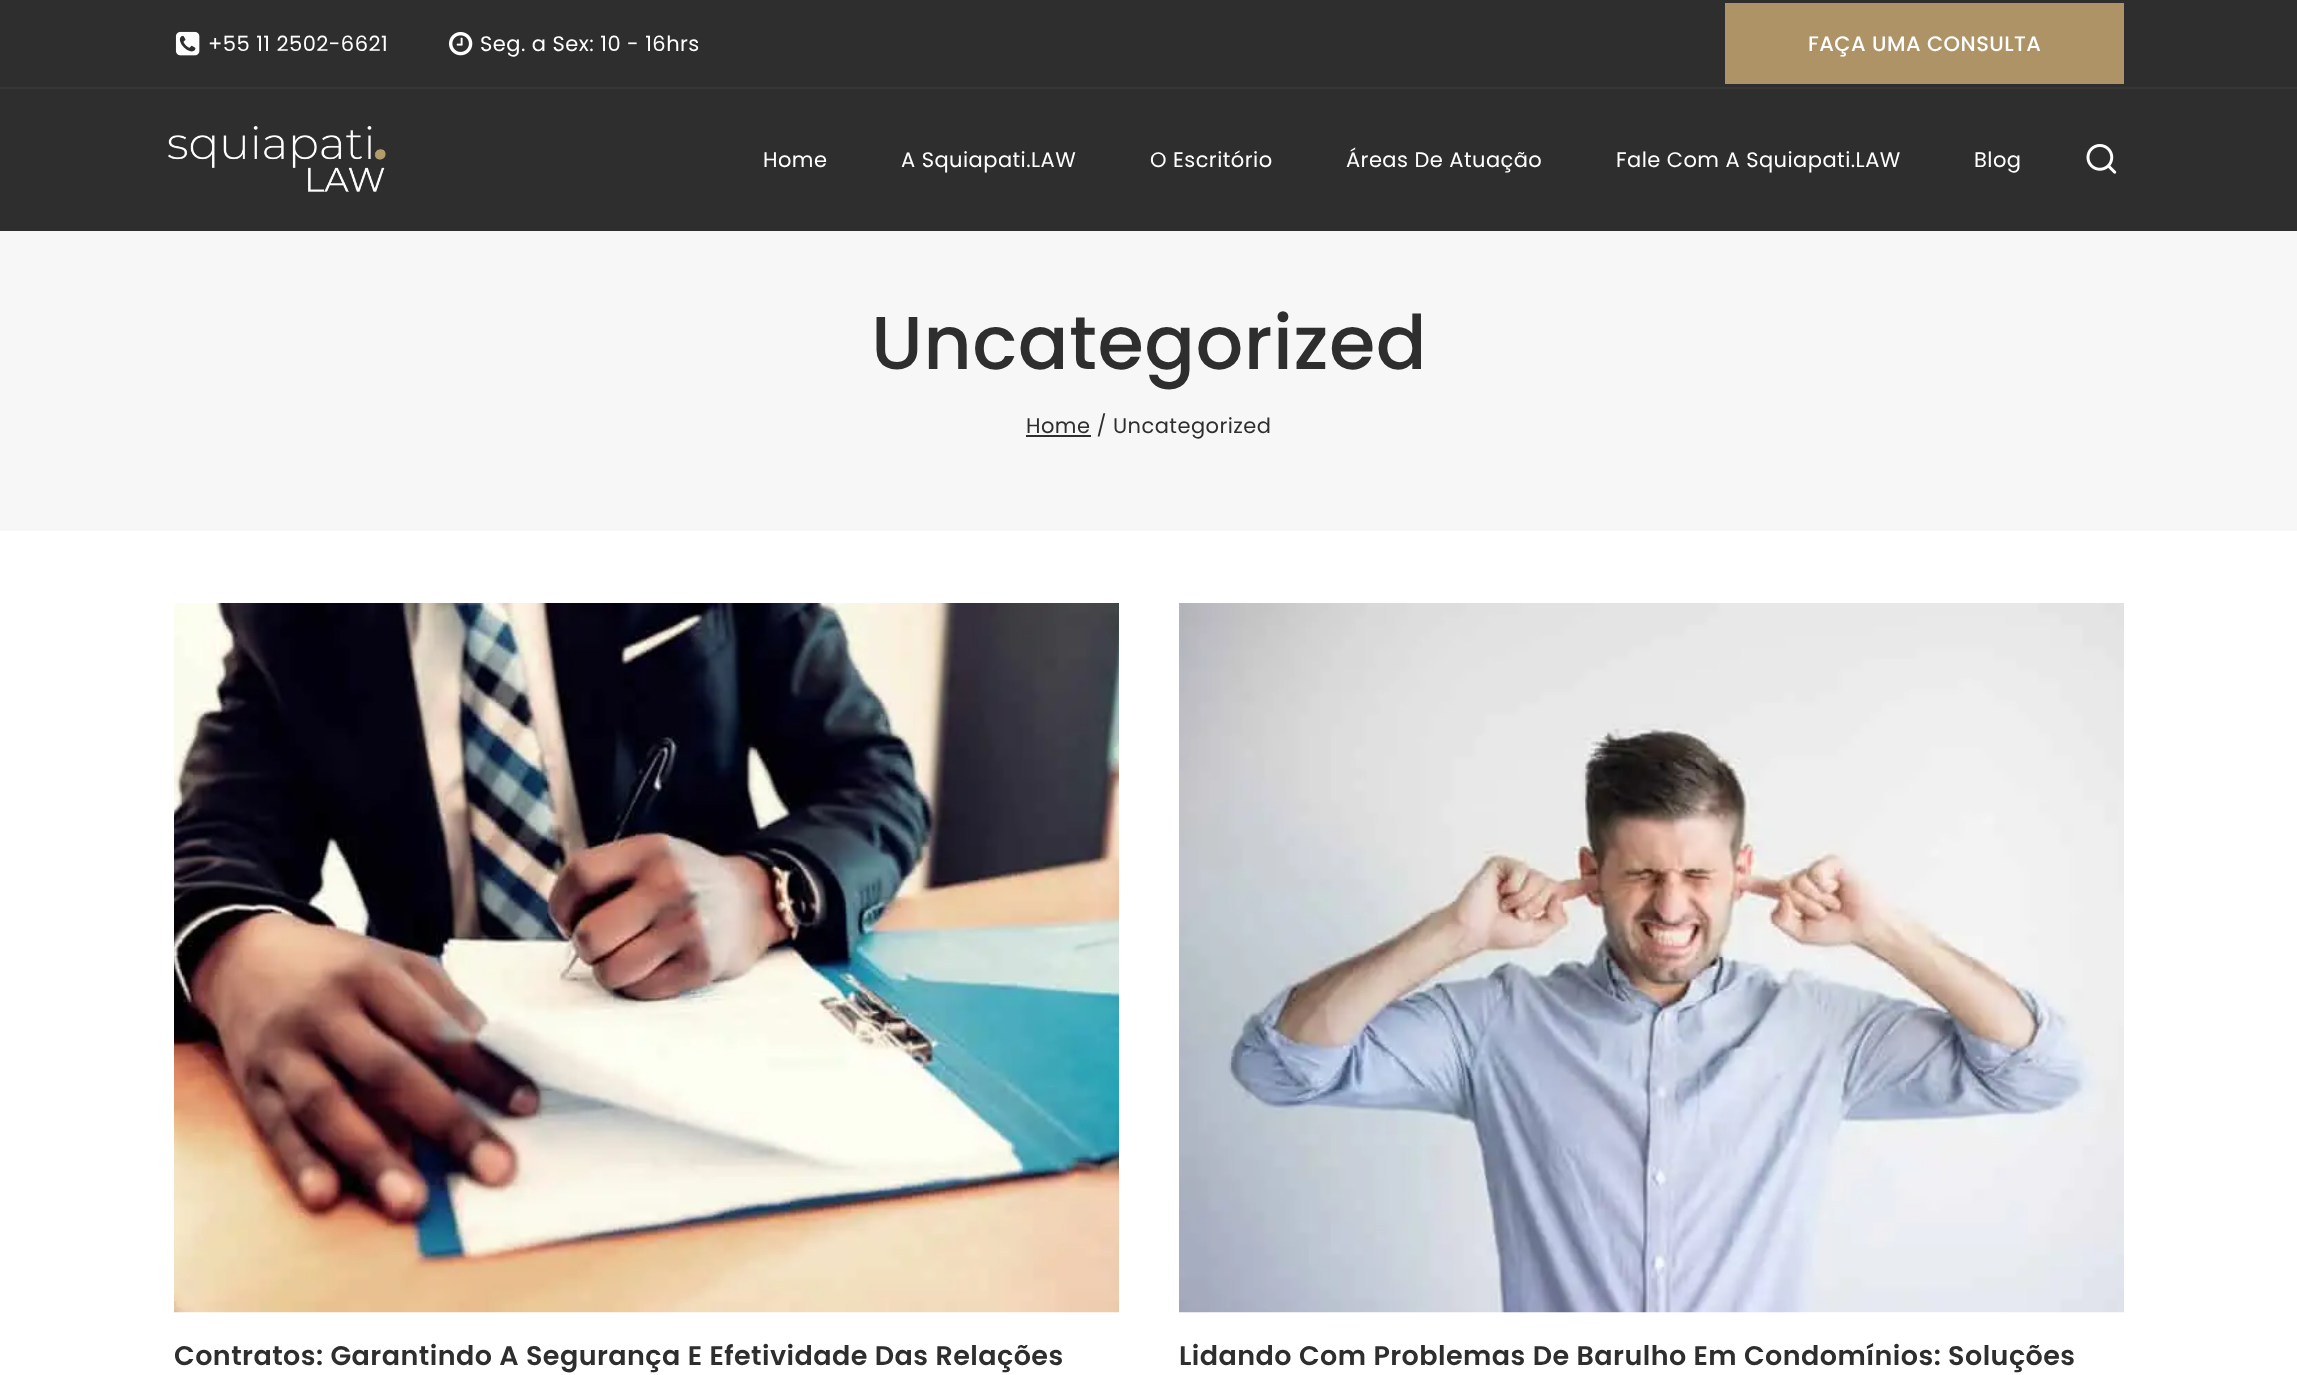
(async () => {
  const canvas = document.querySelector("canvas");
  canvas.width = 2297;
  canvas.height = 1375;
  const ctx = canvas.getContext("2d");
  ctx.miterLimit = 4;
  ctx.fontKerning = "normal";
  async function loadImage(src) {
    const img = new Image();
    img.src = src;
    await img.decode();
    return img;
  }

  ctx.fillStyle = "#ffffff";
  ctx.fillRect(0, 0, 2297, 1375);
  ctx.fillStyle = "#2e2e2e";
  ctx.fillRect(0, 0, 2297, 231);
  ctx.drawImage(await loadImage("img/1.png"), 175, 31, 25, 25);
  ctx.drawImage(await loadImage("img/2.png"), 448, 31, 25, 25);
  ctx.fillStyle = "#ad9366";
  ctx.fillRect(1725, 3, 399, 81);
  ctx.fillStyle = "#363636";
  ctx.fillRect(0, 87, 2297, 2);
  ctx.drawImage(await loadImage("img/3.png"), 168, 126, 218, 66);
  ctx.drawImage(await loadImage("img/4.png"), 2086, 144, 31, 30);
  ctx.fillStyle = "#f7f7f7";
  ctx.fillRect(0, 231, 2297, 300);
  ctx.fillStyle = "#2e2e2e";
  ctx.fillRect(1026, 435, 65, 2);
  ctx.drawImage(await loadImage("img/5.png"), 174, 603, 945, 710);
  ctx.drawImage(await loadImage("img/6.png"), 1179, 603, 945, 710);
  ctx.letterSpacing = "0.45px";
  ctx.font = "21px Poppins";
  ctx.fillStyle = "#ffffff";
  ctx.fillText("+55 11 2502-6621", 208, 51);
  ctx.fillText("Seg. a Sex: 10 - 16hrs", 480, 51);
  ctx.font = "500 21px Poppins";
  ctx.fillText("FAÇA UMA CONSULTA", 1808, 51);
  ctx.font = "21px Poppins";
  for (const [text, x, y] of [
    ["Home", 763, 167],
    ["A Squiapati.LAW", 901, 167],
    ["O Escritório", 1150, 167],
    ["Áreas De Atuação", 1346, 167],
    ["Fale Com A Squiapati.LAW", 1616, 167],
    ["Blog", 1974, 167],
  ]) {
    ctx.fillText(text, x, y);
  }
  ctx.font = "500 75px Poppins";
  ctx.fillStyle = "#2e2e2e";
  ctx.fillText("Uncategorized", 871, 369);
  ctx.font = "21px Poppins";
  ctx.fillText("Home / Uncategorized", 1026, 433);
  ctx.font = "600 27px Poppins";
  ctx.fillText("Contratos: Garantindo A Segurança E Efetividade Das Relações", 174, 1365);
  ctx.fillText("Lidando Com Problemas De Barulho Em Condomínios: Soluções", 1179, 1365);
})();
